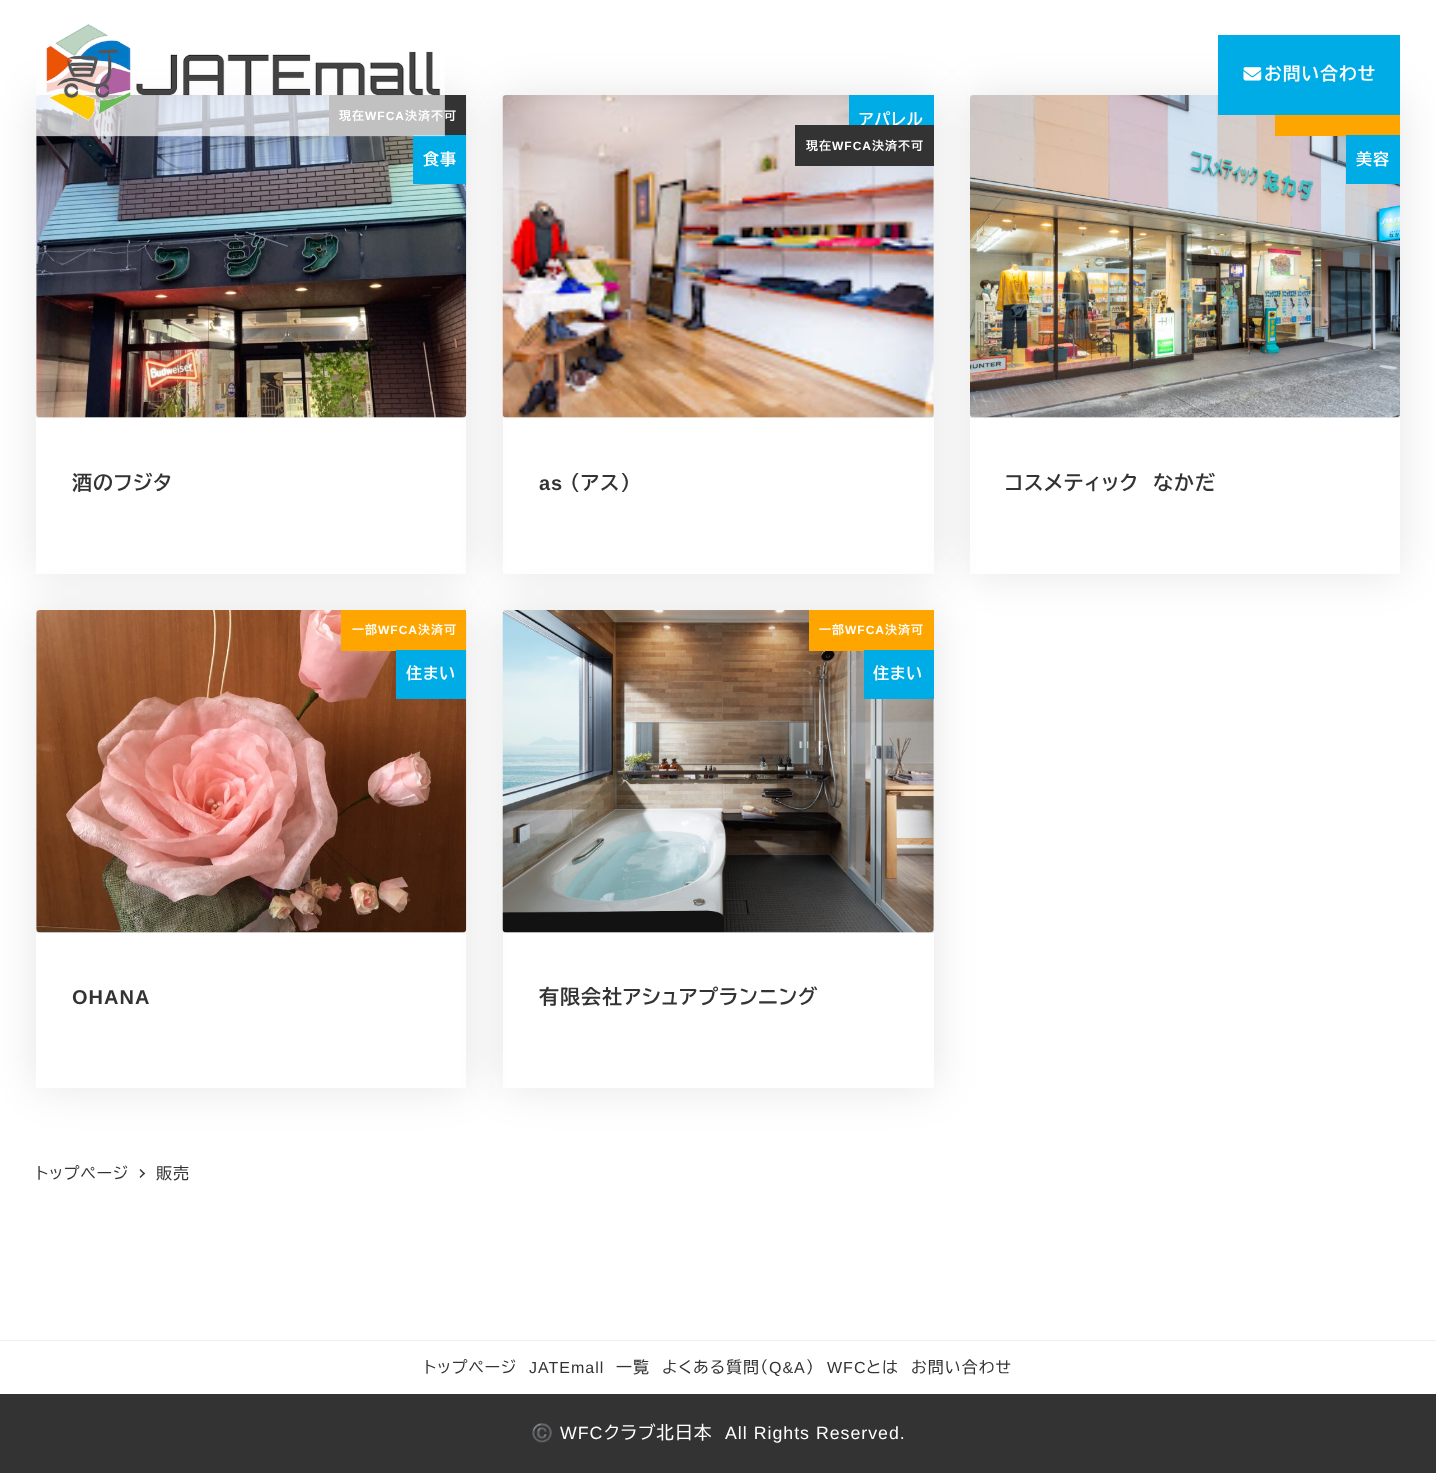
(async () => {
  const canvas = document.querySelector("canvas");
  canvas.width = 1436;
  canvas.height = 1473;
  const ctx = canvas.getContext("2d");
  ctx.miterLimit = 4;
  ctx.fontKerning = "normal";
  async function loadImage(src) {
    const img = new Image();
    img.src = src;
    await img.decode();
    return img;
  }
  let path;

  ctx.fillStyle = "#ffffff";
  ctx.fillRect(0, 0, 1436, 1473);
  ctx.save();
  path = new Path2D("M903 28H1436V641H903ZM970 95H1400V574H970Z");
  ctx.clip(path, "evenodd");
  ctx.fillStyle = "rgba(0, 0, 0, 0.1)";
  ctx.filter = "blur(22px)";
  ctx.beginPath();
  ctx.rect(970, 95, 430, 479);
  ctx.fill();
  ctx.filter = "none";
  ctx.restore();
  ctx.save();
  path = new Path2D("M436 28H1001V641H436ZM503 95H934V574H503Z");
  ctx.clip(path, "evenodd");
  ctx.fillStyle = "rgba(0, 0, 0, 0.1)";
  ctx.filter = "blur(22px)";
  ctx.beginPath();
  ctx.rect(503, 95, 431, 479);
  ctx.fill();
  ctx.filter = "none";
  ctx.restore();
  ctx.fillStyle = "#eeeeee";
  ctx.fillRect(970, 95, 430, 323);
  ctx.drawImage(await loadImage("img/5.png"), 970, 95, 430, 323);
  ctx.fillStyle = "#00ace6";
  ctx.fillRect(1218, 35, 182, 80);
  ctx.drawImage(await loadImage("img/2.png"), 1243, 67, 19, 14);
  ctx.save();
  path = new Path2D("M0 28H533V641H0ZM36 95H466V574H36Z");
  ctx.clip(path, "evenodd");
  ctx.fillStyle = "rgba(0, 0, 0, 0.1)";
  ctx.filter = "blur(22px)";
  ctx.beginPath();
  ctx.rect(36, 95, 430, 479);
  ctx.fill();
  ctx.filter = "none";
  ctx.restore();
  ctx.fillStyle = "#eeeeee";
  ctx.fillRect(36, 95, 430, 323);
  ctx.drawImage(await loadImage("img/3.png"), 36, 95, 431, 323);
  for (const [x, y, w, h, color] of [
    [329, 95, 137, 41, "#333333"],
    [413, 135, 53, 49, "#00ace6"],
    [503, 95, 431, 323, "#eeeeee"],
  ]) {
    ctx.fillStyle = color;
    ctx.fillRect(x, y, w, h);
  }
  ctx.drawImage(await loadImage("img/4.png"), 502, 95, 432, 323);
  for (const [x, y, w, h, color] of [
    [849, 95, 85, 30, "#00ace6"],
    [1275, 115, 125, 21, "#ffa500"],
    [1346, 135, 54, 49, "#00ace6"],
  ]) {
    ctx.fillStyle = color;
    ctx.fillRect(x, y, w, h);
  }
  ctx.save();
  path = new Path2D("M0 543H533V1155H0ZM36 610H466V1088H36Z");
  ctx.clip(path, "evenodd");
  ctx.fillStyle = "rgba(0, 0, 0, 0.1)";
  ctx.filter = "blur(22px)";
  ctx.beginPath();
  ctx.rect(36, 610, 430, 478);
  ctx.fill();
  ctx.filter = "none";
  ctx.restore();
  ctx.save();
  path = new Path2D("M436 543H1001V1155H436ZM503 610H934V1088H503Z");
  ctx.clip(path, "evenodd");
  ctx.fillStyle = "rgba(0, 0, 0, 0.1)";
  ctx.filter = "blur(22px)";
  ctx.beginPath();
  ctx.rect(503, 610, 431, 478);
  ctx.fill();
  ctx.filter = "none";
  ctx.restore();
  ctx.fillStyle = "#eeeeee";
  ctx.fillRect(36, 610, 430, 323);
  ctx.drawImage(await loadImage("img/6.png"), 36, 610, 431, 323);
  for (const [x, y, w, h, color] of [
    [341, 610, 125, 41, "#ffa500"],
    [396, 650, 70, 49, "#00ace6"],
    [503, 610, 431, 323, "#eeeeee"],
  ]) {
    ctx.fillStyle = color;
    ctx.fillRect(x, y, w, h);
  }
  ctx.drawImage(await loadImage("img/7.png"), 502, 610, 432, 323);
  ctx.fillStyle = "#ffa500";
  ctx.fillRect(809, 610, 125, 41);
  ctx.fillStyle = "#00ace6";
  ctx.fillRect(864, 650, 70, 49);
  ctx.fillStyle = "#333333";
  path = new Path2D("M140.5 1169L145 1173.5L144 1174.5L139.5 1170Z");
  ctx.fill(path);
  path = new Path2D("M144 1172.5L145 1173.5L140.5 1178L139.5 1177Z");
  ctx.fill(path);
  ctx.fillStyle = "#eeeeee";
  ctx.fillRect(0, 1340, 1436, 1);
  ctx.fillStyle = "#333333";
  ctx.fillRect(0, 1394, 1436, 79);
  ctx.letterSpacing = "1px";
  ctx.font = "bold 17.75px BIZ UDPGothic";
  ctx.fillStyle = "#ffffff";
  ctx.fillText("お問い合わせ", 1264, 80);
  ctx.font = "bold 12px BIZ UDPGothic";
  ctx.fillText("現在", 339, 120);
  ctx.font = "bold 12px Liberation Sans";
  ctx.fillText("WFCA", 365, 120);
  ctx.font = "bold 12px BIZ UDPGothic";
  ctx.fillText("決済不可", 405, 120);
  ctx.drawImage(await loadImage("img/1.png"), 36, 24, 409, 113);
  ctx.font = "bold 16px BIZ UDPGothic";
  ctx.fillText("食事", 423, 165);
  ctx.font = "bold 20px BIZ UDPGothic";
  ctx.fillStyle = "#333333";
  ctx.fillText("酒のフジタ", 72, 490);
  ctx.font = "bold 16px BIZ UDPGothic";
  ctx.fillStyle = "#ffffff";
  ctx.fillText("アパレル", 859, 125);
  ctx.fillStyle = "#333333";
  ctx.fillRect(795, 125, 139, 41);
  ctx.font = "bold 12px BIZ UDPGothic";
  ctx.fillStyle = "#ffffff";
  ctx.fillText("現在", 806, 150);
  ctx.font = "bold 12px Liberation Sans";
  ctx.fillText("WFCA", 832, 150);
  ctx.font = "bold 12px BIZ UDPGothic";
  ctx.fillText("決済不可", 872, 150);
  ctx.font = "bold 20px Liberation Sans";
  ctx.fillStyle = "#333333";
  ctx.fillText("as", 539, 490);
  ctx.font = "bold 20px BIZ UDPGothic";
  ctx.fillText("（アス）", 570, 490);
  ctx.font = "bold 16px BIZ UDPGothic";
  ctx.fillStyle = "#ffffff";
  ctx.fillText("美容", 1356, 165);
  ctx.font = "bold 20px BIZ UDPGothic";
  ctx.fillStyle = "#333333";
  ctx.fillText("コスメティック　なかだ", 1005, 490);
  ctx.font = "bold 12px BIZ UDPGothic";
  ctx.fillStyle = "#ffffff";
  ctx.fillText("一部", 352, 634);
  ctx.font = "bold 12px Liberation Sans";
  ctx.fillText("WFCA", 378, 634);
  ctx.font = "bold 12px BIZ UDPGothic";
  ctx.fillText("決済可", 418, 634);
  ctx.font = "bold 16px BIZ UDPGothic";
  ctx.fillText("住まい", 406, 679);
  ctx.font = "bold 20px Liberation Sans";
  ctx.fillStyle = "#333333";
  ctx.fillText("OHANA", 72, 1004);
  ctx.font = "bold 12px BIZ UDPGothic";
  ctx.fillStyle = "#ffffff";
  ctx.fillText("一部", 819, 634);
  ctx.font = "bold 12px Liberation Sans";
  ctx.fillText("WFCA", 845, 634);
  ctx.font = "bold 12px BIZ UDPGothic";
  ctx.fillText("決済可", 885, 634);
  ctx.font = "bold 16px BIZ UDPGothic";
  ctx.fillText("住まい", 873, 679);
  ctx.font = "bold 20px BIZ UDPGothic";
  ctx.fillStyle = "#333333";
  ctx.fillText("有限会社アシュアプランニング", 539, 1004);
  ctx.font = "16px BIZ UDPGothic";
  for (const [text, x, y] of [
    ["トップページ", 36, 1179],
    ["販売", 156, 1179],
    ["トップページ", 424, 1373],
  ]) {
    ctx.fillText(text, x, y);
  }
  ctx.font = "16px Liberation Sans";
  ctx.fillText("JATEmall", 529, 1373);
  ctx.font = "16px BIZ UDPGothic";
  ctx.fillText("一覧", 616, 1373);
  ctx.fillText("よくある質問（", 662, 1373);
  ctx.font = "16px Liberation Sans";
  ctx.fillText("Q&A", 769, 1373);
  ctx.font = "16px BIZ UDPGothic";
  ctx.fillText("）", 806, 1373);
  ctx.font = "16px Liberation Sans";
  ctx.fillText("WFC", 827, 1373);
  ctx.font = "16px BIZ UDPGothic";
  ctx.fillText("とは", 866, 1373);
  ctx.fillText("お問い合わせ", 911, 1373);
  ctx.font = "17.75px Noto Color Emoji";
  ctx.fillStyle = "#ffffff";
  ctx.fillText("©️", 531, 1439);
  ctx.font = "17.75px Liberation Sans";
  ctx.fillText("WFC", 560, 1439);
  ctx.font = "17.75px BIZ UDPGothic";
  ctx.fillText("クラブ北日本", 604, 1439);
  ctx.font = "17.75px Liberation Sans";
  ctx.fillText("All Rights Reserved.", 725, 1439);
})();
